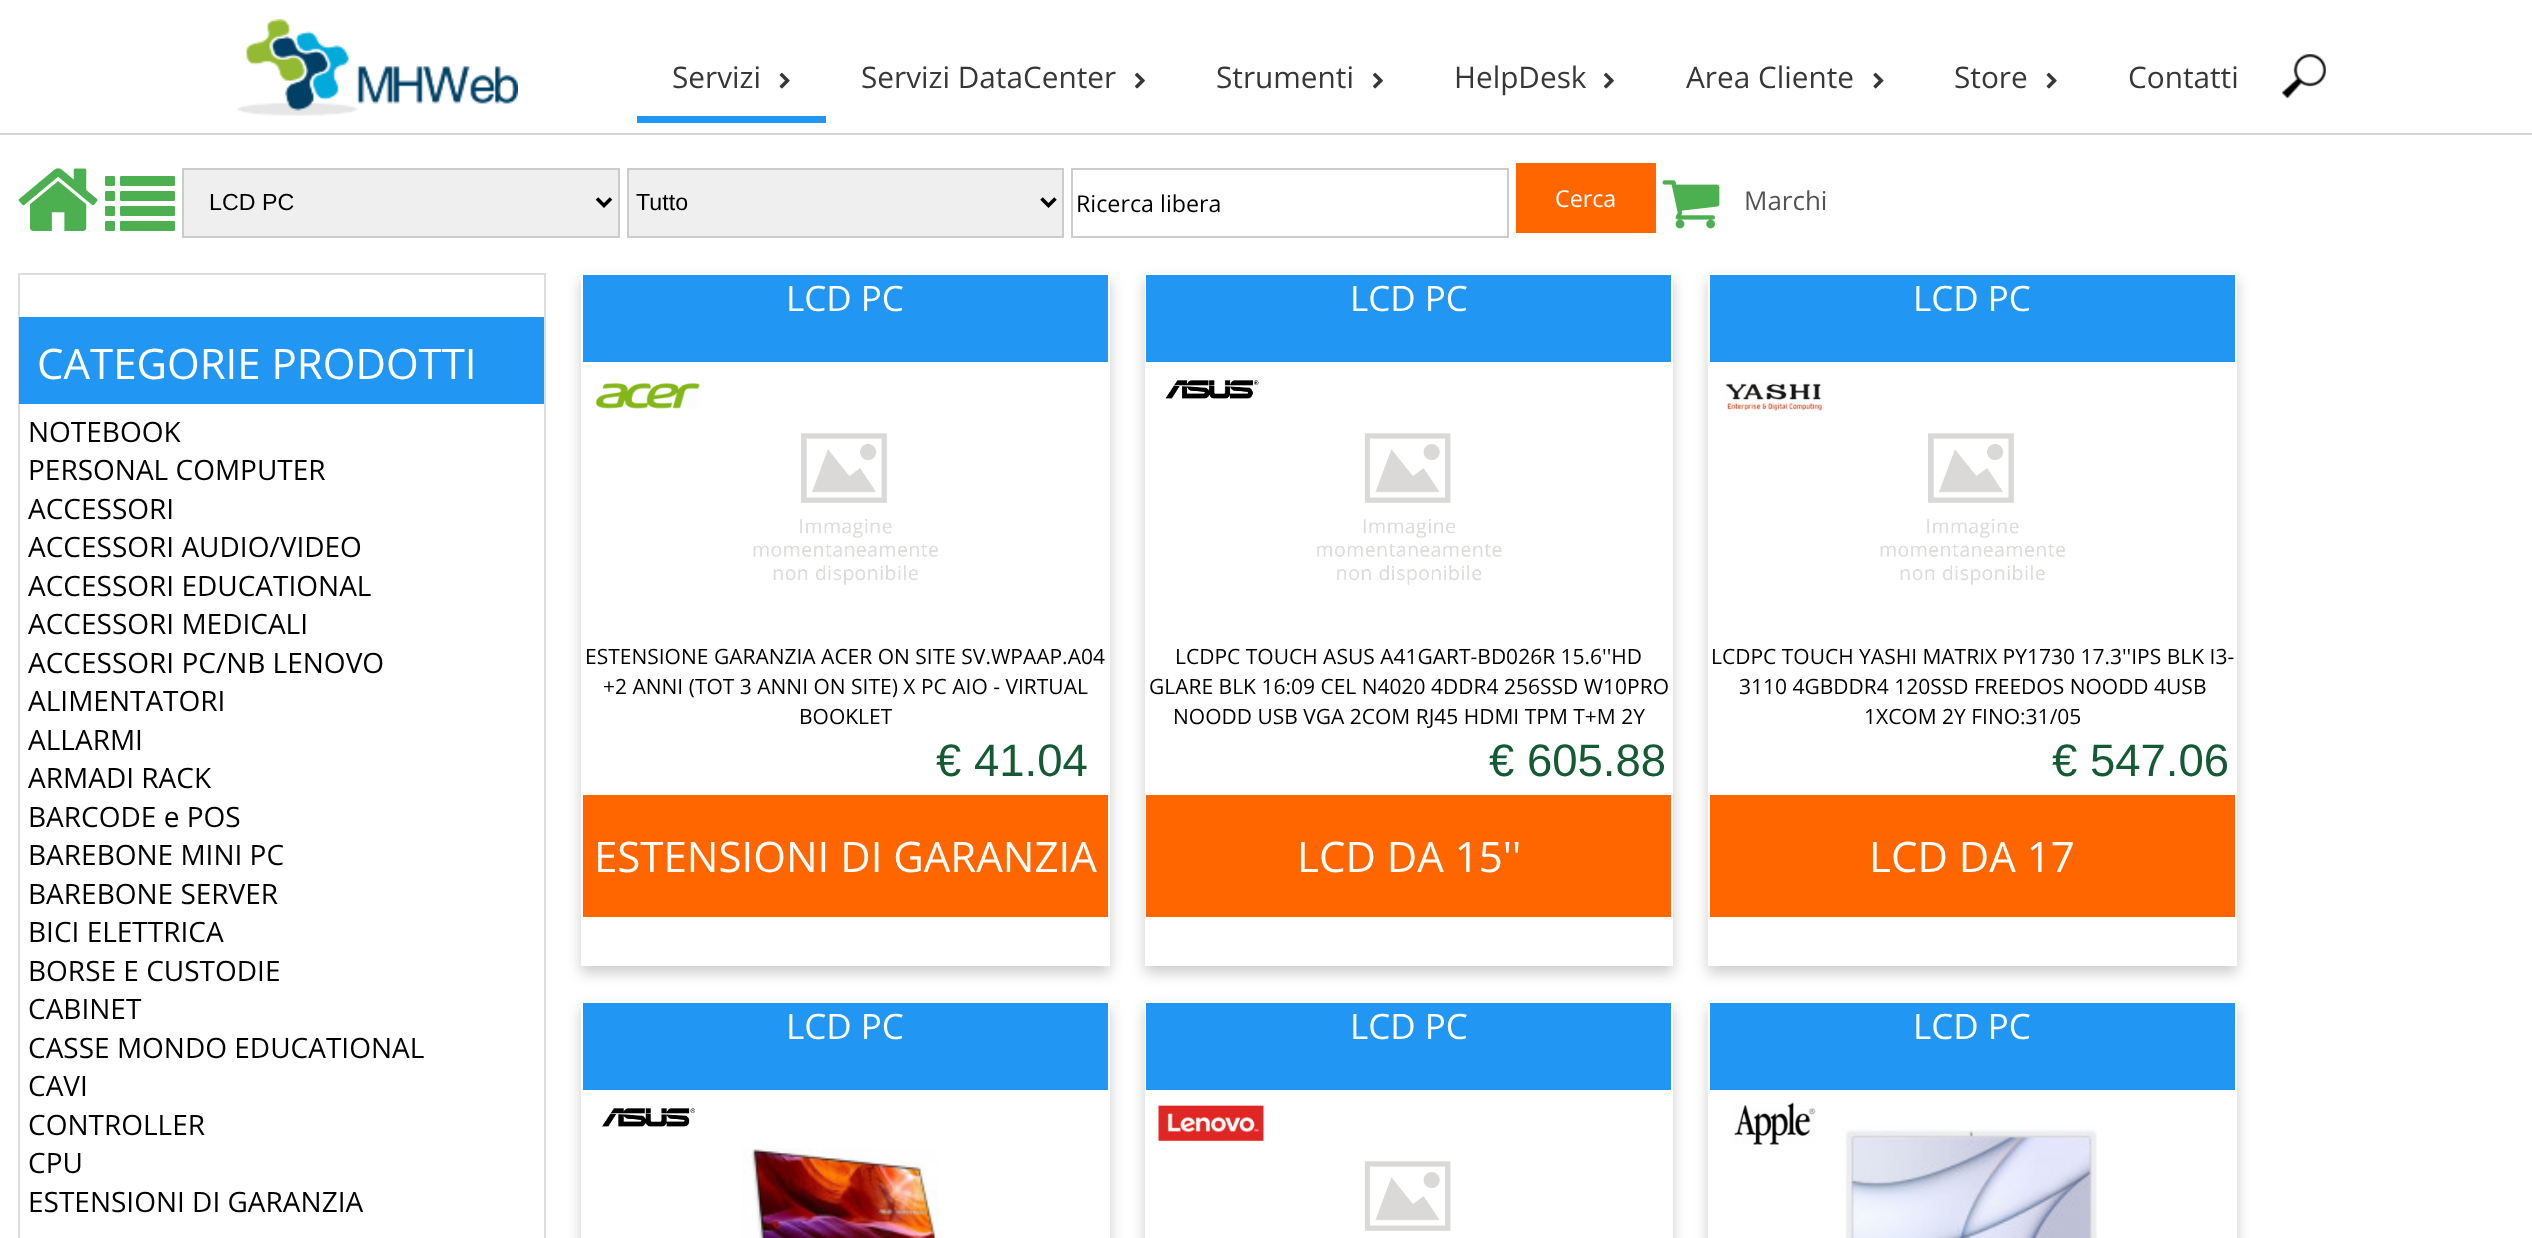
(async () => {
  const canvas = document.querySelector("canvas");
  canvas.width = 2532;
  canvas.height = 1238;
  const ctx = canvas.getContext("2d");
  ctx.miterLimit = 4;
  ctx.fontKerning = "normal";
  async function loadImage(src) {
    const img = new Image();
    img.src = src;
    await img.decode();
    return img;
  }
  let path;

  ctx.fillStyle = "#ffffff";
  ctx.fillRect(0, 0, 2532, 1238);
  ctx.fillStyle = "#d5d5d5";
  ctx.fillRect(0, 133, 2532, 2);
  ctx.drawImage(await loadImage("img/1.png"), 238, 19, 280, 97);
  ctx.drawImage(await loadImage("img/2.png"), 779, 72, 11, 17);
  ctx.drawImage(await loadImage("img/3.png"), 1134, 72, 11, 17);
  ctx.drawImage(await loadImage("img/3.png"), 1372, 72, 11, 17);
  ctx.drawImage(await loadImage("img/3.png"), 1603, 72, 11, 17);
  ctx.drawImage(await loadImage("img/4.png"), 1873, 72, 11, 17);
  ctx.drawImage(await loadImage("img/2.png"), 2046, 72, 11, 17);
  ctx.fillStyle = "#2196f3";
  ctx.fillRect(637, 116, 189, 7);
  ctx.drawImage(await loadImage("img/5.png"), 2282, 54, 44, 44);
  ctx.drawImage(await loadImage("img/6.png"), 18, 168, 80, 63);
  ctx.drawImage(await loadImage("img/7.png"), 105, 176, 70, 55);
  ctx.fillStyle = "#efefef";
  ctx.beginPath();
  ctx.rect(183, 169, 436, 68);
  ctx.fill();
  ctx.strokeStyle = "#cccccc";
  ctx.lineWidth = 2;
  ctx.stroke();
  path = new Path2D("M597 198.5L604 205.5L611 198.5");
  ctx.strokeStyle = "#000000";
  ctx.lineWidth = 3.5;
  ctx.stroke(path);
  ctx.beginPath();
  ctx.rect(628, 169, 435, 68);
  ctx.fill();
  ctx.strokeStyle = "#cccccc";
  ctx.lineWidth = 2;
  ctx.stroke();
  path = new Path2D("M1041.5 198.5L1048.5 205.5L1055.5 198.5");
  ctx.strokeStyle = "#000000";
  ctx.lineWidth = 3.5;
  ctx.stroke(path);
  ctx.strokeStyle = "#cccccc";
  ctx.lineWidth = 2;
  ctx.strokeRect(1072, 169, 436, 68);
  ctx.fillStyle = "#ff6600";
  ctx.fillRect(1516, 163, 140, 70);
  ctx.drawImage(await loadImage("img/8.png"), 1662, 180, 58, 49);
  ctx.strokeStyle = "#dddddd";
  ctx.strokeRect(19, 274, 526, 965);
  ctx.fillStyle = "#2196f3";
  ctx.fillRect(19, 317, 525, 87);
  ctx.save();
  path = new Path2D("M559 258H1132V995H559ZM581 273H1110V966H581Z");
  ctx.clip(path, "evenodd");
  ctx.fillStyle = "rgba(0, 0, 0, 0.2)";
  ctx.filter = "blur(7px)";
  ctx.beginPath();
  ctx.rect(581, 280, 529, 693);
  ctx.fill();
  ctx.filter = "none";
  ctx.restore();
  ctx.strokeStyle = "#ffffff";
  ctx.strokeRect(582, 274, 527, 691);
  ctx.fillRect(583, 275, 525, 87);
  ctx.drawImage(await loadImage("img/9.png"), 595, 383, 105, 26);
  ctx.drawImage(await loadImage("img/10.png"), 753, 433, 185, 152);
  ctx.fillStyle = "#ff6600";
  ctx.fillRect(583, 795, 525, 122);
  ctx.save();
  path = new Path2D("M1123 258H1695V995H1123ZM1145 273H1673V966H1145Z");
  ctx.clip(path, "evenodd");
  ctx.fillStyle = "rgba(0, 0, 0, 0.2)";
  ctx.filter = "blur(7px)";
  ctx.beginPath();
  ctx.rect(1145, 280, 528, 693);
  ctx.fill();
  ctx.filter = "none";
  ctx.restore();
  ctx.fillStyle = "#2196f3";
  ctx.fillRect(1146, 275, 525, 87);
  ctx.drawImage(await loadImage("img/11.png"), 1165, 380, 94, 19);
  ctx.drawImage(await loadImage("img/12.png"), 1317, 433, 185, 152);
  ctx.fillStyle = "#ff6600";
  ctx.fillRect(1146, 795, 525, 122);
  ctx.save();
  path = new Path2D("M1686 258H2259V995H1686ZM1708 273H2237V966H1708Z");
  ctx.clip(path, "evenodd");
  ctx.fillStyle = "rgba(0, 0, 0, 0.2)";
  ctx.filter = "blur(7px)";
  ctx.beginPath();
  ctx.rect(1708, 280, 529, 693);
  ctx.fill();
  ctx.filter = "none";
  ctx.restore();
  ctx.strokeRect(1709, 274, 527, 691);
  ctx.fillStyle = "#2196f3";
  ctx.fillRect(1710, 275, 525, 87);
  ctx.drawImage(await loadImage("img/13.png"), 1725, 383, 97, 28);
  ctx.drawImage(await loadImage("img/10.png"), 1880, 433, 185, 152);
  ctx.fillStyle = "#ff6600";
  ctx.fillRect(1710, 795, 525, 122);
  ctx.save();
  path = new Path2D("M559 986H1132V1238H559ZM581 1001H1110V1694H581Z");
  ctx.clip(path, "evenodd");
  ctx.fillStyle = "rgba(0, 0, 0, 0.2)";
  ctx.filter = "blur(7px)";
  ctx.beginPath();
  ctx.rect(581, 1008, 529, 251);
  ctx.fill();
  ctx.filter = "none";
  ctx.restore();
  ctx.strokeRect(582, 1002, 527, 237);
  ctx.fillStyle = "#2196f3";
  ctx.fillRect(583, 1003, 525, 87);
  ctx.drawImage(await loadImage("img/14.png"), 601, 1108, 95, 19);
  ctx.drawImage(await loadImage("img/15.png"), 742, 1148, 197, 90);
  ctx.save();
  path = new Path2D("M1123 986H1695V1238H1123ZM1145 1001H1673V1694H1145Z");
  ctx.clip(path, "evenodd");
  ctx.fillStyle = "rgba(0, 0, 0, 0.2)";
  ctx.filter = "blur(7px)";
  ctx.beginPath();
  ctx.rect(1145, 1008, 528, 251);
  ctx.fill();
  ctx.filter = "none";
  ctx.restore();
  ctx.fillRect(1146, 1003, 525, 87);
  ctx.drawImage(await loadImage("img/16.png"), 1158, 1105, 106, 36);
  ctx.drawImage(await loadImage("img/17.png"), 1364, 1161, 87, 70);
  ctx.save();
  path = new Path2D("M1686 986H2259V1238H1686ZM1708 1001H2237V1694H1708Z");
  ctx.clip(path, "evenodd");
  ctx.fillStyle = "rgba(0, 0, 0, 0.2)";
  ctx.filter = "blur(7px)";
  ctx.beginPath();
  ctx.rect(1708, 1008, 529, 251);
  ctx.fill();
  ctx.filter = "none";
  ctx.restore();
  ctx.strokeRect(1709, 1002, 527, 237);
  ctx.fillRect(1710, 1003, 525, 87);
  ctx.drawImage(await loadImage("img/18.png"), 1733, 1102, 83, 43);
  ctx.drawImage(await loadImage("img/19.png"), 1841, 1126, 256, 112);
  ctx.font = "29.75px Open Sans";
  ctx.fillStyle = "#373737";
  for (const [text, x, y] of [
    ["Servizi", 672, 88],
    ["Servizi DataCenter", 861, 88],
    ["Strumenti", 1216, 88],
    ["HelpDesk", 1454, 88],
    ["Area Cliente", 1686, 88],
    ["Store", 1954, 88],
    ["Contatti", 2128, 88],
  ]) {
    ctx.fillText(text, x, y);
  }
  ctx.font = "23.25px Liberation Sans";
  ctx.fillStyle = "#000000";
  ctx.fillText("LCD PC", 209, 210);
  ctx.fillText("Tutto", 636, 210);
  ctx.font = "23.25px Open Sans";
  ctx.fillText("Ricerca libera", 1076, 212);
  ctx.fillStyle = "#ffffff";
  ctx.fillText("Cerca", 1555, 207);
  ctx.font = "26px Open Sans";
  ctx.fillStyle = "#545454";
  ctx.fillText("Marchi", 1744, 210);
  ctx.font = "42px Open Sans";
  ctx.fillStyle = "#ffffff";
  ctx.fillText("CATEGORIE PRODOTTI", 37, 379);
  ctx.font = "28px Open Sans";
  ctx.fillStyle = "#000000";
  for (const [text, x, y] of [
    ["NOTEBOOK", 28, 442],
    ["PERSONAL COMPUTER", 28, 480],
    ["ACCESSORI", 28, 519],
    ["ACCESSORI AUDIO/VIDEO", 28, 557],
    ["ACCESSORI EDUCATIONAL", 28, 596],
    ["ACCESSORI MEDICALI", 28, 634],
    ["ACCESSORI PC/NB LENOVO", 28, 673],
    ["ALIMENTATORI", 28, 711],
    ["ALLARMI", 28, 750],
    ["ARMADI RACK", 28, 788],
    ["BARCODE e POS", 28, 827],
    ["BAREBONE MINI PC", 28, 865],
    ["BAREBONE SERVER", 28, 904],
    ["BICI ELETTRICA", 28, 942],
    ["BORSE E CUSTODIE", 28, 981],
    ["CABINET", 28, 1019],
    ["CASSE MONDO EDUCATIONAL", 28, 1058],
    ["CAVI", 28, 1096],
    ["CONTROLLER", 28, 1135],
    ["CPU", 28, 1173],
    ["ESTENSIONI DI GARANZIA", 28, 1212],
  ]) {
    ctx.fillText(text, x, y);
  }
  ctx.font = "35px Open Sans";
  ctx.fillStyle = "#ffffff";
  ctx.fillText("LCD PC", 786, 311);
  ctx.font = "21px Open Sans";
  ctx.fillStyle = "#000000";
  for (const [text, x, y] of [
    ["ESTENSIONE GARANZIA ACER ON SITE SV.WPAAP.A04", 585, 664],
    ["+2 ANNI (TOT 3 ANNI ON SITE) X PC AIO - VIRTUAL", 603, 694],
    ["BOOKLET", 799, 724],
  ]) {
    ctx.fillText(text, x, y);
  }
  ctx.font = "45.5px Liberation Sans";
  ctx.fillStyle = "#145a32";
  ctx.fillText("€ 41.04", 936, 776);
  ctx.font = "42px Open Sans";
  ctx.fillStyle = "#ffffff";
  ctx.fillText("ESTENSIONI DI GARANZIA", 594, 872);
  ctx.font = "35px Open Sans";
  ctx.fillText("LCD PC", 1350, 311);
  ctx.font = "21px Open Sans";
  ctx.fillStyle = "#000000";
  for (const [text, x, y] of [
    ["LCDPC TOUCH ASUS A41GART-BD026R 15.6''HD", 1175, 664],
    ["GLARE BLK 16:09 CEL N4020 4DDR4 256SSD W10PRO", 1149, 694],
    ["NOODD USB VGA 2COM RJ45 HDMI TPM T+M 2Y", 1173, 724],
  ]) {
    ctx.fillText(text, x, y);
  }
  ctx.font = "45.5px Liberation Sans";
  ctx.fillStyle = "#145a32";
  ctx.fillText("€ 605.88", 1489, 776);
  ctx.font = "42px Open Sans";
  ctx.fillStyle = "#ffffff";
  ctx.fillText("LCD DA 15''", 1297, 872);
  ctx.font = "35px Open Sans";
  ctx.fillText("LCD PC", 1913, 311);
  ctx.font = "21px Open Sans";
  ctx.fillStyle = "#000000";
  for (const [text, x, y] of [
    ["LCDPC TOUCH YASHI MATRIX PY1730 17.3''IPS BLK I3-", 1711, 664],
    ["3110 4GBDDR4 120SSD FREEDOS NOODD 4USB", 1739, 694],
    ["1XCOM 2Y FINO:31/05", 1864, 724],
  ]) {
    ctx.fillText(text, x, y);
  }
  ctx.font = "45.5px Liberation Sans";
  ctx.fillStyle = "#145a32";
  ctx.fillText("€ 547.06", 2052, 776);
  ctx.font = "42px Open Sans";
  ctx.fillStyle = "#ffffff";
  ctx.fillText("LCD DA 17", 1869, 872);
  ctx.font = "35px Open Sans";
  for (const [text, x, y] of [
    ["LCD PC", 786, 1039],
    ["LCD PC", 1350, 1039],
    ["LCD PC", 1913, 1039],
  ]) {
    ctx.fillText(text, x, y);
  }
})();
